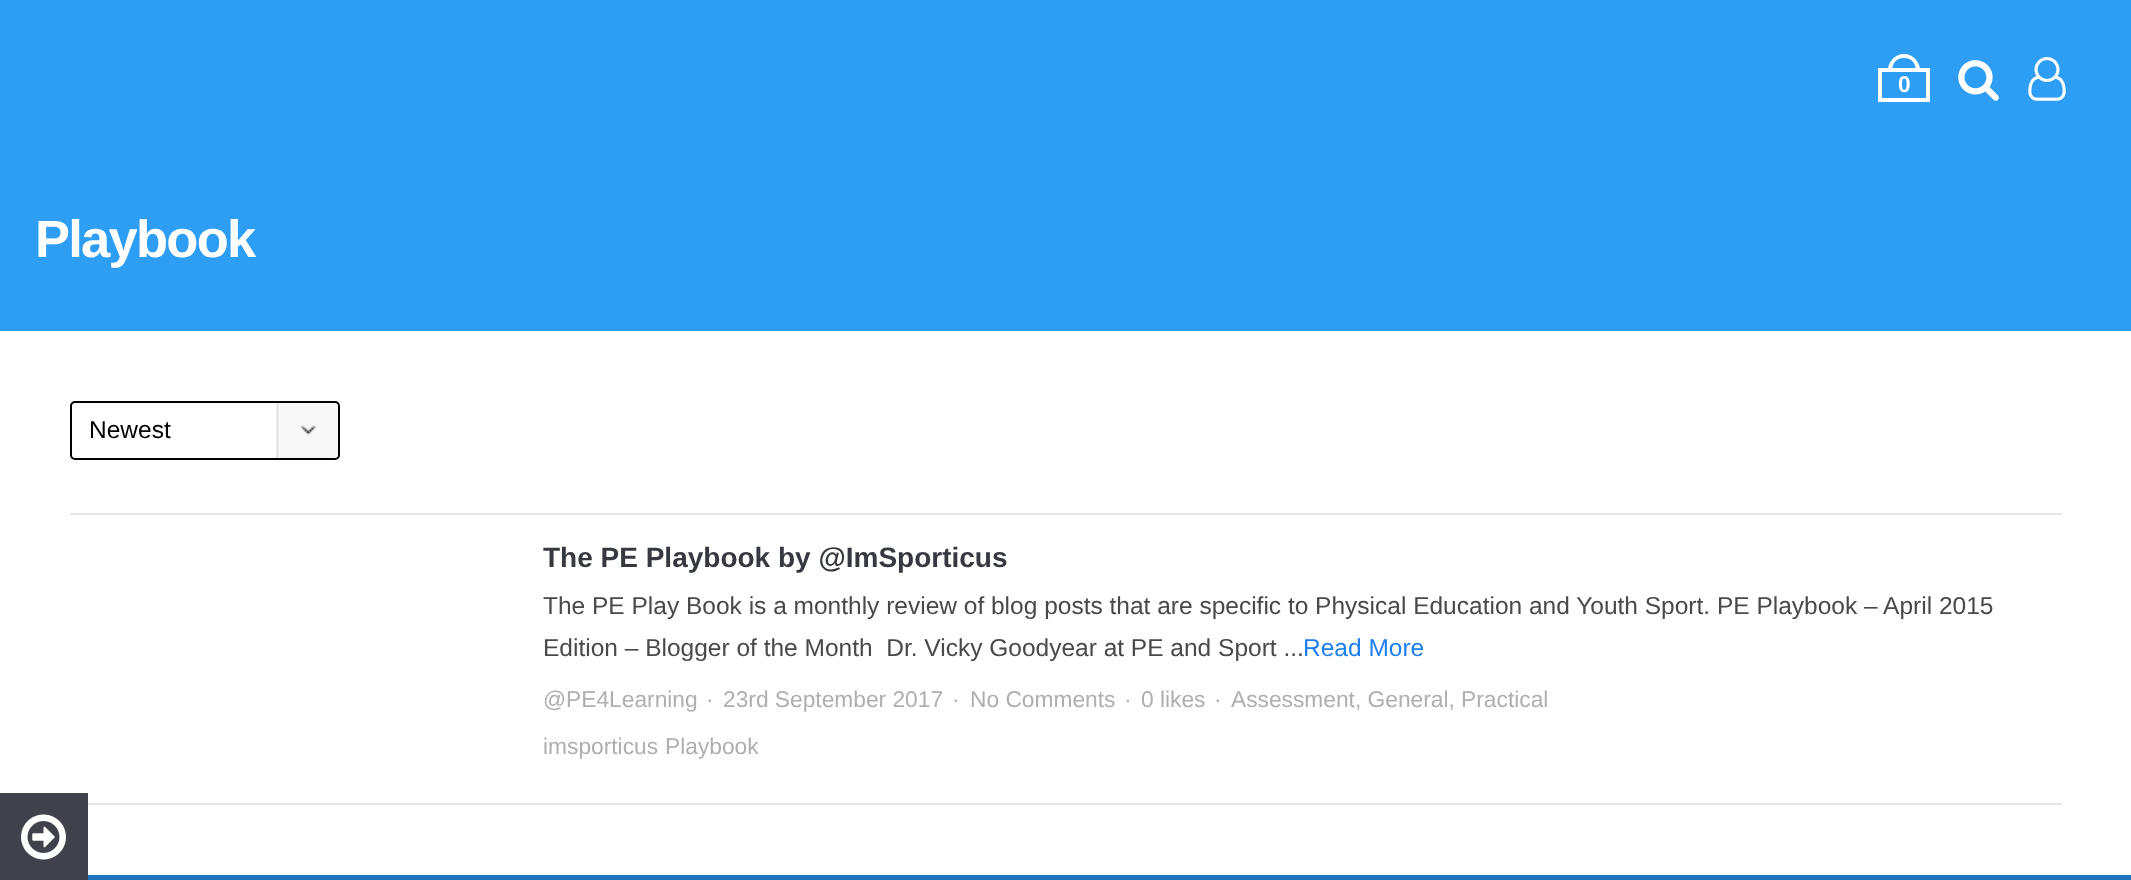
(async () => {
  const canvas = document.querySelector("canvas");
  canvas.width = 2131;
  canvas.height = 880;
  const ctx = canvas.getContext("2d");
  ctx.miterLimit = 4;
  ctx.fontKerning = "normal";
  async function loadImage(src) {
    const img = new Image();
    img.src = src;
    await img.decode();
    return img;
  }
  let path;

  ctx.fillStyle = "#ffffff";
  ctx.fillRect(0, 0, 2131, 880);
  ctx.fillStyle = "#2e9ef4";
  ctx.fillRect(0, 0, 2131, 331);
  ctx.strokeStyle = "#ffffff";
  ctx.lineWidth = 4;
  ctx.strokeRect(1880, 70, 48, 30);
  ctx.fillStyle = "#ffffff";
  path = new Path2D("M1904 54C1912.5 54 1920 61.5 1920 70V72H1888V70C1888 61.5 1895.5 54 1904 54ZM1904 58C1912.5 58 1916 64 1916 72H1892C1892 64 1895.5 58 1904 58Z");
  ctx.fill(path, "evenodd");
  ctx.drawImage(await loadImage("img/1.png"), 1958, 60, 41, 41);
  ctx.drawImage(await loadImage("img/2.png"), 2028, 57, 38, 44);
  ctx.fillStyle = "#e6e6e6";
  ctx.fillRect(70, 513, 1992, 2);
  ctx.drawImage(await loadImage("img/3.png"), 276, 401, 62, 59);
  ctx.beginPath();
  ctx.roundRect(71, 402, 268, 57, 4);
  ctx.strokeStyle = "#000000";
  ctx.lineWidth = 2;
  ctx.stroke();
  for (const [x, y, w, h, color] of [
    [88, 803, 1974, 2, "#e6e6e6"],
    [88, 875, 2043, 5, "#1e73be"],
    [0, 793, 88, 87, "#3f424a"],
  ]) {
    ctx.fillStyle = color;
    ctx.fillRect(x, y, w, h);
  }
  ctx.drawImage(await loadImage("img/4.png"), 21, 814, 45, 46);
  ctx.font = "bold 22.75px Liberation Sans";
  ctx.fillStyle = "#ffffff";
  ctx.fillText("0", 1898, 92);
  ctx.letterSpacing = "-1.75px";
  ctx.font = "bold 52.5px Liberation Sans";
  ctx.fillText("Playbook", 35, 257);
  ctx.letterSpacing = "0px";
  ctx.font = "24.5px Liberation Sans";
  ctx.fillStyle = "#000000";
  ctx.fillText("Newest", 89, 438);
  ctx.save();
  ctx.beginPath();
  ctx.rect(543, 541, 1519, 220);
  ctx.clip();
  ctx.font = "bold 28px Liberation Sans";
  ctx.fillStyle = "#363940";
  ctx.fillText("The PE Playbook by @ImSporticus", 543, 567);
  ctx.restore();
  ctx.fillStyle = "#494949";
  ctx.fillText("The PE Play Book is a monthly review of blog posts that are specific to Physical Education and Youth Sport. PE Playbook – April 2015", 543, 614);
  ctx.fillText("Edition – Blogger of the Month  Dr. Vicky Goodyear at PE and Sport ...", 543, 656);
  ctx.fillStyle = "#1c7fef";
  ctx.fillText("Read More", 1303, 656);
  ctx.font = "22.75px Liberation Sans";
  ctx.fillStyle = "#afafaf";
  for (const [text, x, y] of [
    ["@PE4Learning", 543, 707],
    ["·", 706, 707],
    ["23rd September 2017", 723, 707],
    ["·", 952, 707],
    ["No Comments", 970, 707],
    ["·", 1124, 707],
    ["0 likes", 1141, 707],
    ["·", 1214, 707],
    ["Assessment, General, Practical", 1231, 707],
    ["imsporticus", 543, 754],
    ["Playbook", 665, 754],
  ]) {
    ctx.fillText(text, x, y);
  }
})();
